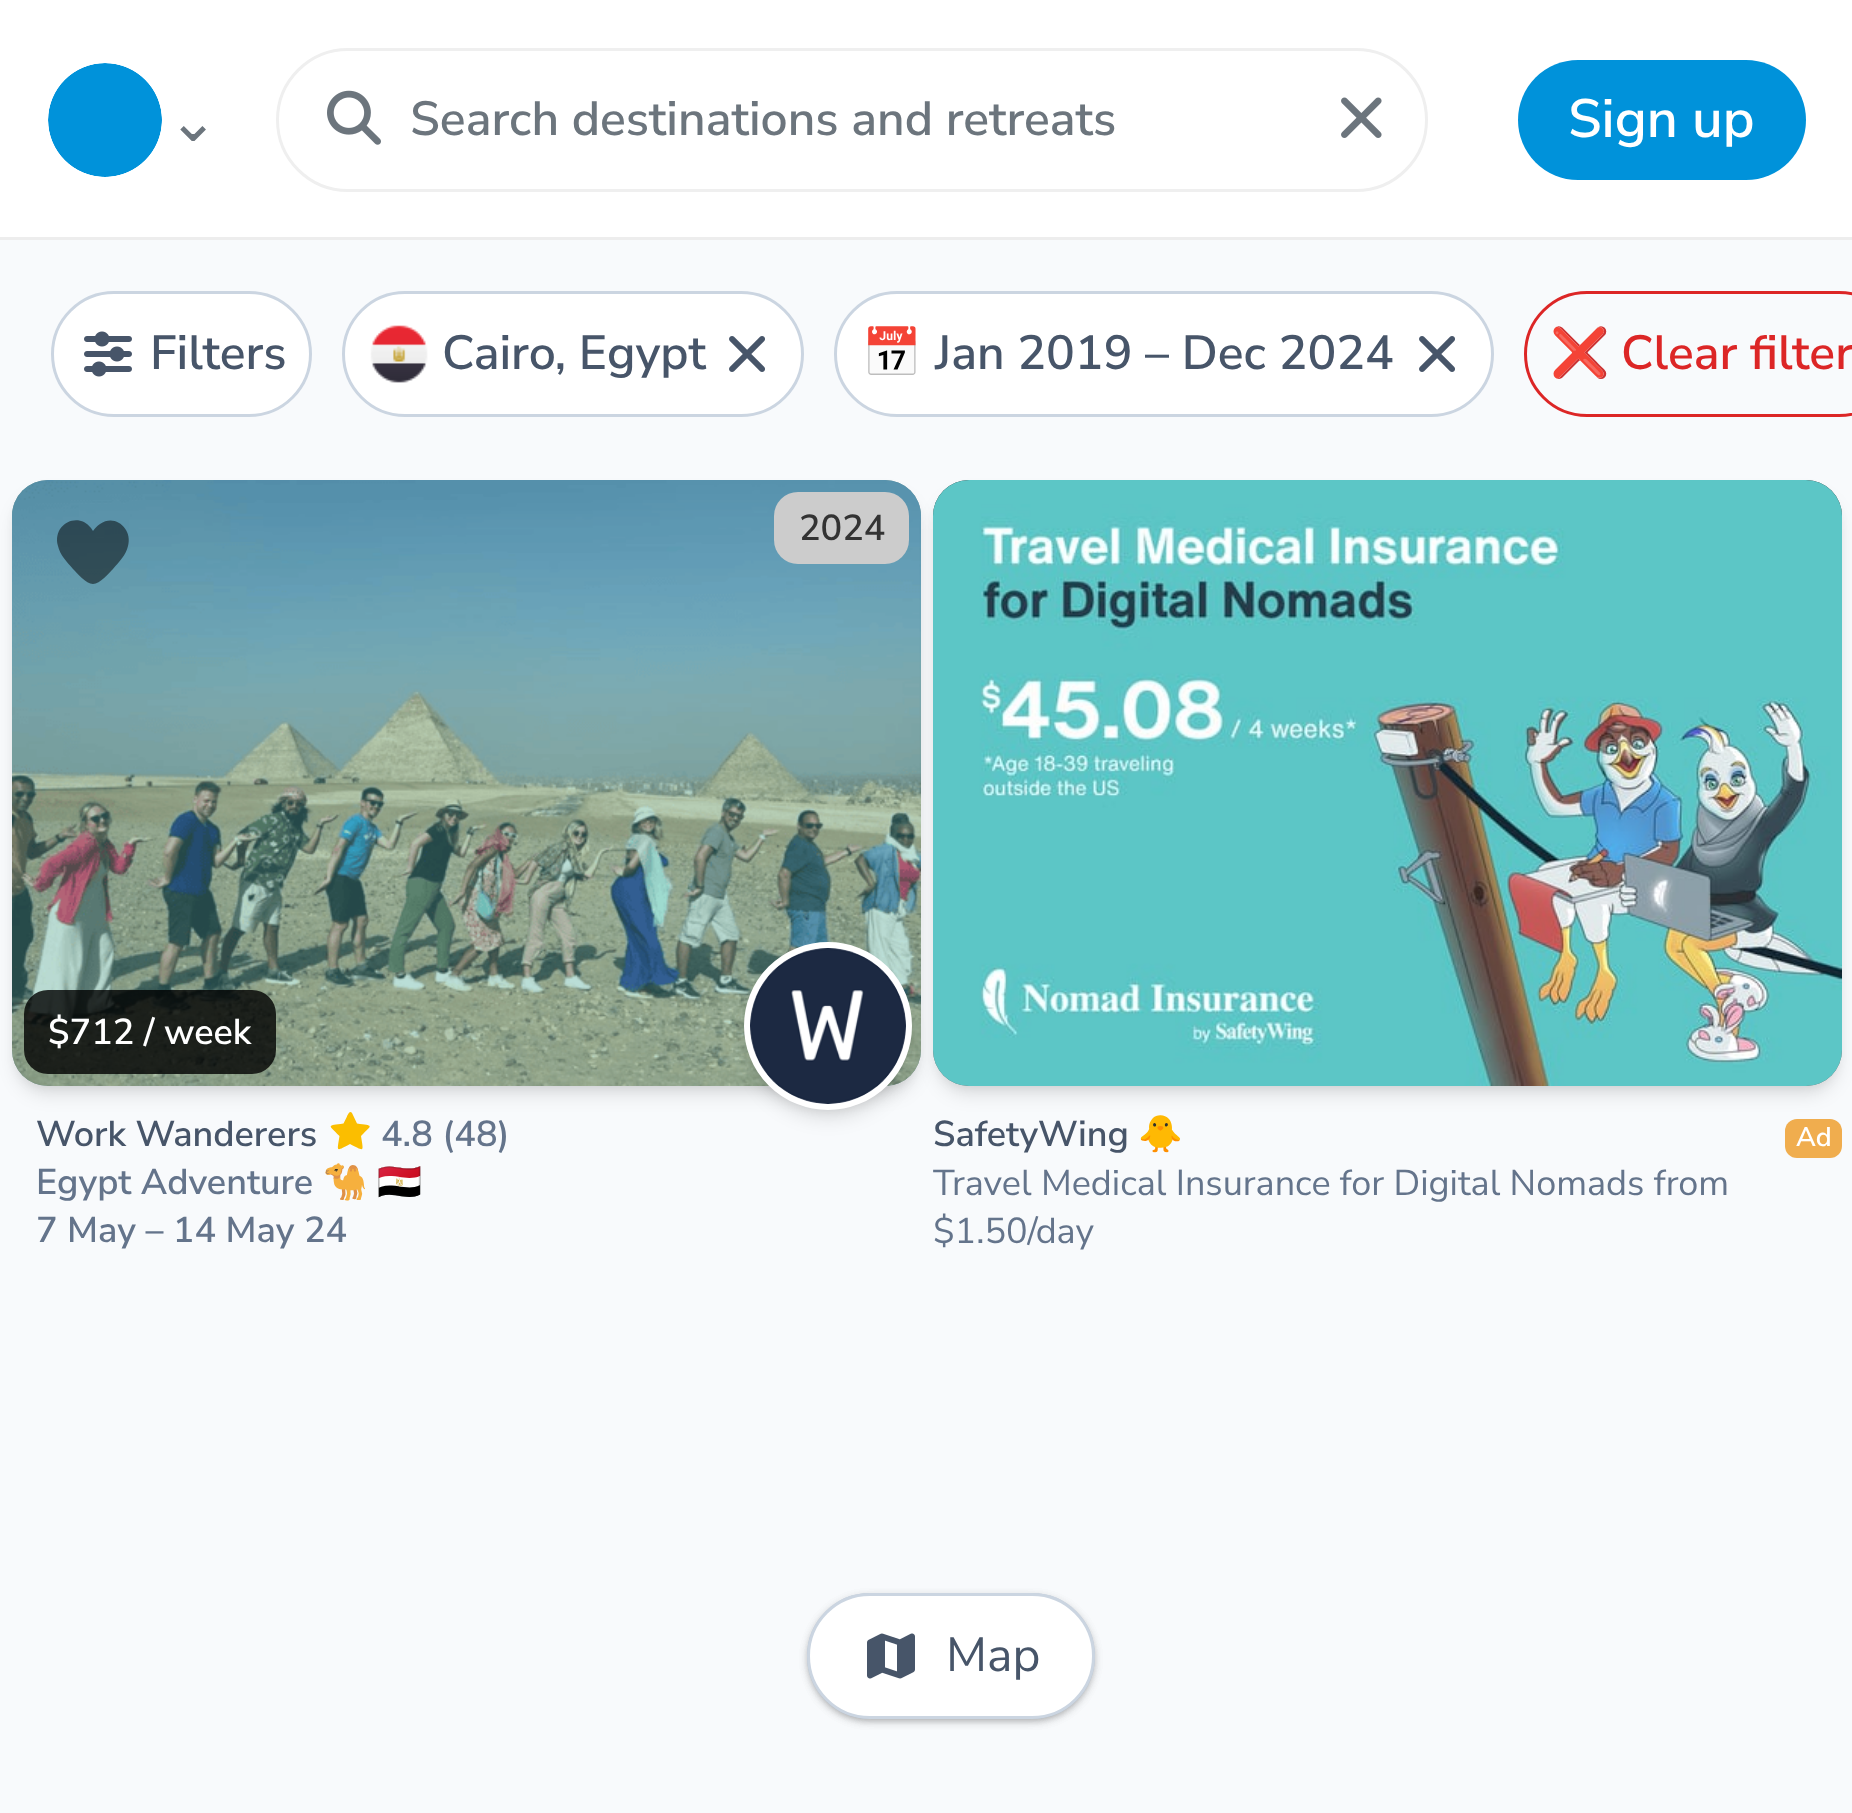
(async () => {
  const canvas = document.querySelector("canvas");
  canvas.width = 1852;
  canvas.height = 1813;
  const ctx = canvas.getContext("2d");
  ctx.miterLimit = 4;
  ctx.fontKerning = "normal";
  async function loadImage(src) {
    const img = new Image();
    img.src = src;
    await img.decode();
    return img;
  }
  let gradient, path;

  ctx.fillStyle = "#f8fafc";
  ctx.fillRect(0, 0, 1852, 1813);
  ctx.fillStyle = "#ffffff";
  ctx.fillRect(0, 0, 1852, 237);
  ctx.fillStyle = "#ededed";
  ctx.fillRect(0, 237, 1852, 3);
  ctx.drawImage(await loadImage("img/1.png"), 48, 63, 114, 114);
  ctx.beginPath();
  ctx.roundRect(277.5, 49.5, 1149, 141, 70.5);
  ctx.strokeStyle = "#efefef";
  ctx.lineWidth = 3;
  ctx.stroke();
  ctx.drawImage(await loadImage("img/2.png"), 327, 90, 54, 55);
  ctx.drawImage(await loadImage("img/3.png"), 1341, 97, 41, 41);
  ctx.fillStyle = "#0092da";
  ctx.beginPath();
  ctx.roundRect(1518, 60, 288, 120, 60);
  ctx.fill();
  ctx.fillStyle = "#ffffff";
  ctx.beginPath();
  ctx.roundRect(52.5, 292.5, 258, 123, 61.5);
  ctx.fill();
  ctx.strokeStyle = "#cbd5e1";
  ctx.stroke();
  ctx.drawImage(await loadImage("img/4.png"), 84, 331, 48, 46);
  ctx.beginPath();
  ctx.roundRect(343.5, 292.5, 459, 123, 61.5);
  ctx.fill();
  ctx.stroke();
  ctx.drawImage(await loadImage("img/5.png"), 370, 325, 58, 58);
  ctx.drawImage(await loadImage("img/6.png"), 729, 336, 36, 36);
  ctx.beginPath();
  ctx.roundRect(835.5, 292.5, 657, 123, 61.5);
  ctx.fill();
  ctx.stroke();
  ctx.drawImage(await loadImage("img/6.png"), 1419, 336, 36, 36);
  ctx.beginPath();
  ctx.roundRect(1525.5, 292.5, 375, 123, 61.5);
  ctx.strokeStyle = "#dc2626";
  ctx.stroke();
  ctx.fillStyle = "rgba(0, 0, 0, 0.1)";
  ctx.filter = "blur(6px)";
  ctx.beginPath();
  ctx.roundRect(18, 492, 897, 594, 30);
  ctx.fill();
  ctx.filter = "none";
  ctx.fillStyle = "#fbbe00";
  path = new Path2D("M352 1113C349.5 1110 347.5 1115.5 347 1116.5L343.5 1123.5C327 1126 327.5 1124 339.5 1136C337 1152.5 335.5 1151.5 350 1144C365 1151.5 363.5 1152.5 361 1136C373 1124 373.5 1126 357 1123.5Z");
  ctx.fill(path);
  ctx.fillStyle = "rgba(0, 0, 0, 0.1)";
  ctx.filter = "blur(9px)";
  ctx.beginPath();
  ctx.roundRect(15, 495, 903, 600, 33);
  ctx.fill();
  ctx.filter = "none";
  ctx.drawImage(await loadImage("img/7.png"), 12, 480, 909, 606);
  ctx.drawImage(await loadImage("img/8.png"), 12, 480, 909, 606);
  ctx.fillStyle = "#cccccc";
  ctx.beginPath();
  ctx.roundRect(774, 492, 135, 72, 24);
  ctx.fill();
  ctx.fillStyle = "rgba(0, 0, 0, 0.8)";
  ctx.beginPath();
  ctx.roundRect(24, 990, 252, 84, 24);
  ctx.fill();
  ctx.fillStyle = "rgba(0, 0, 0, 0.5)";
  path = new Path2D("M91 528L93 531C95 528 97 526 100 524C115 513 133 529 128 546C126 555 119 562 113 569C109 573 100 584 93 584C86 584 77 573 73 569C67 562 60 555 58 546C52 524 78 511 91 528Z");
  ctx.fill(path);
  ctx.fillStyle = "rgba(0, 0, 0, 0.1)";
  ctx.filter = "blur(6px)";
  ctx.beginPath();
  ctx.roundRect(750, 954, 156, 156, 78);
  ctx.fill();
  ctx.filter = "none";
  ctx.filter = "blur(6px)";
  ctx.beginPath();
  ctx.roundRect(939, 492, 897, 594, 30);
  ctx.fill();
  ctx.filter = "none";
  ctx.filter = "blur(9px)";
  ctx.beginPath();
  ctx.roundRect(936, 495, 903, 600, 33);
  ctx.fill();
  ctx.filter = "none";
  gradient = ctx.createLinearGradient(1388, 480, 1388, 1086);
  gradient.addColorStop(0, "#232121");
  gradient.addColorStop(1, "#6f6b6b");
  ctx.fillStyle = gradient;
  ctx.beginPath();
  ctx.roundRect(933, 480, 909, 606, 36);
  ctx.fill();
  ctx.drawImage(await loadImage("img/10.png"), 933, 480, 909, 606);
  ctx.fillStyle = "rgba(0, 0, 0, 0.1)";
  ctx.filter = "blur(9px)";
  ctx.beginPath();
  ctx.roundRect(747, 957, 162, 162, 81);
  ctx.fill();
  ctx.filter = "none";
  ctx.fillStyle = "#ffffff";
  ctx.beginPath();
  ctx.arc(828, 1026, 81, 0, Math.PI * 2);
  ctx.fill();
  ctx.strokeStyle = "#ffffff";
  ctx.lineWidth = 6;
  ctx.stroke();
  ctx.drawImage(await loadImage("img/9.png"), 750, 948, 156, 156);
  ctx.fillStyle = "#f0ad4e";
  ctx.beginPath();
  ctx.roundRect(1785, 1119, 57, 39, 12);
  ctx.fill();
  ctx.fillStyle = "rgba(0, 0, 0, 0.1)";
  ctx.filter = "blur(3px)";
  ctx.beginPath();
  ctx.roundRect(810, 1599, 282, 120, 60);
  ctx.fill();
  ctx.filter = "none";
  ctx.filter = "blur(4.5px)";
  ctx.beginPath();
  ctx.roundRect(807, 1596, 288, 126, 63);
  ctx.fill();
  ctx.filter = "none";
  ctx.beginPath();
  ctx.roundRect(808.5, 1594.5, 285, 123, 61.5);
  ctx.strokeStyle = "#cbd5e1";
  ctx.lineWidth = 3;
  ctx.stroke();
  ctx.filter = "blur(3px)";
  ctx.beginPath();
  ctx.roundRect(810, 1599, 282, 120, 60);
  ctx.fill();
  ctx.filter = "none";
  ctx.filter = "blur(4.5px)";
  ctx.beginPath();
  ctx.roundRect(807, 1596, 288, 126, 63);
  ctx.fill();
  ctx.filter = "none";
  ctx.fillStyle = "#ffffff";
  ctx.beginPath();
  ctx.roundRect(808.5, 1594.5, 285, 123, 61.5);
  ctx.fill();
  ctx.stroke();
  ctx.drawImage(await loadImage("img/11.png"), 867, 1633, 48, 46);
  ctx.letterSpacing = "25px";
  ctx.font = "60px DejaVu Sans";
  ctx.fillStyle = "#6c757d";
  ctx.fillText("⌄", 168, 141);
  ctx.letterSpacing = "0px";
  ctx.font = "600 48px Nunito Sans";
  ctx.fillText("Search destinations and retreats", 410, 135);
  ctx.font = "600 54px Nunito Sans";
  ctx.fillStyle = "#ffffff";
  ctx.fillText("Sign up", 1568, 137);
  ctx.font = "600 48px Nunito Sans";
  ctx.fillStyle = "#475569";
  ctx.fillText("Filters", 150, 369);
  ctx.fillText("Cairo, Egypt", 442, 369);
  ctx.font = "48px Noto Color Emoji";
  ctx.fillText("📅", 862, 369);
  ctx.font = "600 48px Nunito Sans";
  ctx.fillText("Jan 2019 – Dec 2024", 935, 369);
  ctx.font = "48px Noto Color Emoji";
  ctx.fillStyle = "#dc2626";
  ctx.fillText("❌", 1550, 369);
  ctx.font = "600 48px Nunito Sans";
  ctx.fillText("Clear filter", 1621, 369);
  ctx.font = "600 36px Nunito Sans";
  ctx.fillStyle = "#333333";
  ctx.fillText("2024", 799, 540);
  ctx.fillStyle = "#ffffff";
  ctx.fillText("$712 / week", 48, 1044);
  ctx.fillStyle = "#475569";
  ctx.fillText("Work Wanderers", 36, 1146);
  ctx.fillStyle = "#64748b";
  ctx.fillText("4.8 (48)", 381, 1146);
  ctx.fillText("Egypt Adventure", 36, 1194);
  ctx.font = "36px Noto Color Emoji";
  ctx.fillText("🐪", 323, 1194);
  ctx.fillText("🇪🇬", 377, 1194);
  ctx.font = "600 36px Nunito Sans";
  ctx.fillText("7 May – 14 May 24", 36, 1242);
  ctx.fillStyle = "#475569";
  ctx.fillText("SafetyWing", 933, 1146);
  ctx.font = "36px Noto Color Emoji";
  ctx.fillText("🐥", 1138, 1146);
  ctx.font = "600 27px Nunito Sans";
  ctx.fillStyle = "#ffffff";
  ctx.fillText("Ad", 1796, 1146);
  ctx.font = "36px Nunito Sans";
  ctx.fillStyle = "#64748b";
  ctx.fillText("Travel Medical Insurance for Digital Nomads from", 933, 1195);
  ctx.fillText("$1.50/day", 933, 1243);
  ctx.font = "48px Nunito Sans";
  ctx.fillStyle = "#475569";
  ctx.fillText("Map", 946, 1671);
})();
